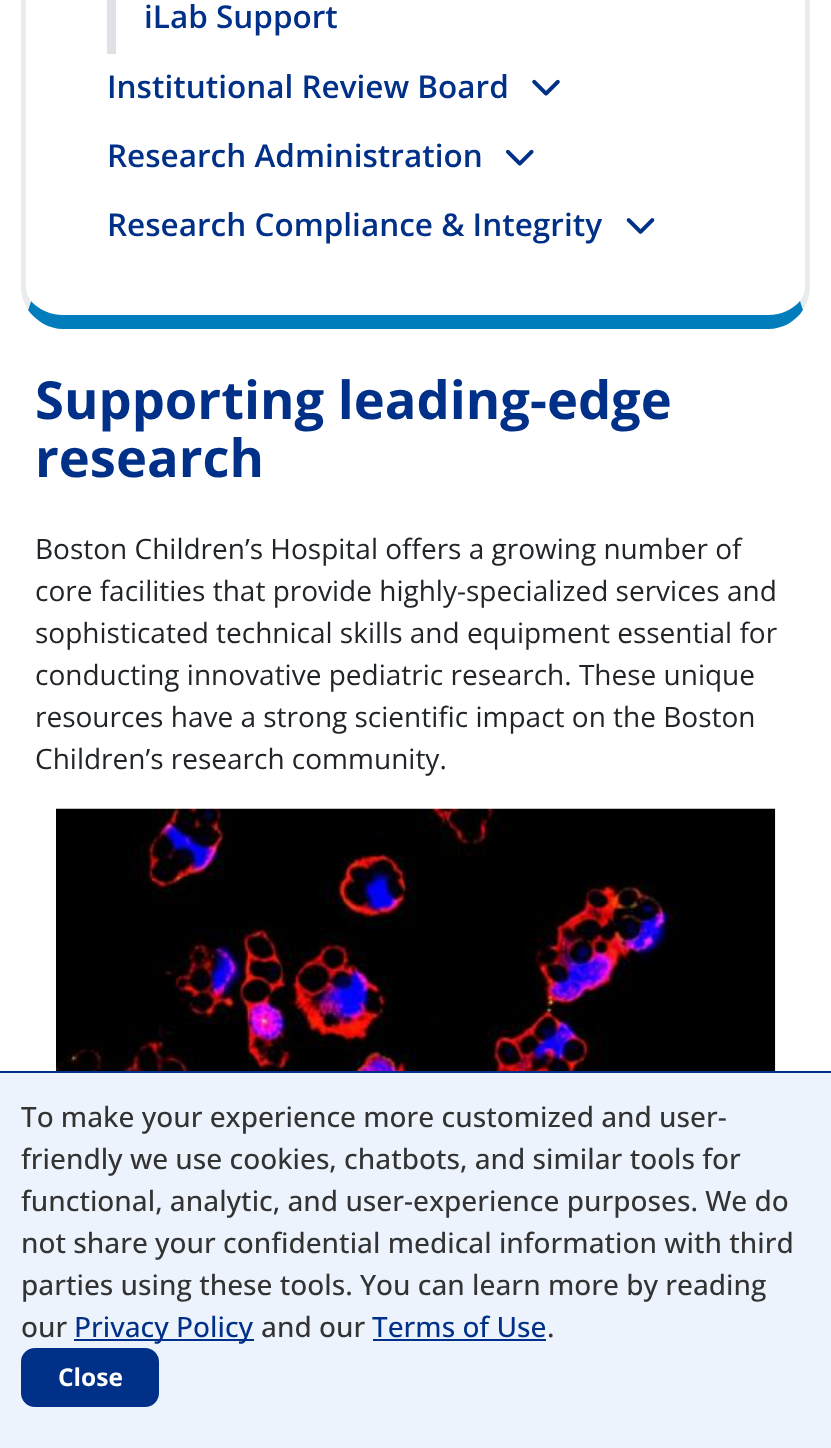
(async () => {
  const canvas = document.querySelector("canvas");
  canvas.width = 831;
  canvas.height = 1448;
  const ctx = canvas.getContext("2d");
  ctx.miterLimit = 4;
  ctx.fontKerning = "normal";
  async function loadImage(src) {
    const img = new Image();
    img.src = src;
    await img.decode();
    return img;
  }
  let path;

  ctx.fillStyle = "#ffffff";
  ctx.fillRect(0, 0, 831, 1448);
  ctx.fillStyle = "#e9ecef";
  path = new Path2D("M803-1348C807-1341 810-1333 810-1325V287C810 295 807 303 803 310L800 301C803 297 805 292 805 287V-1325C805-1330 803-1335 800-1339Z");
  ctx.fill(path);
  ctx.fillStyle = "#007dba";
  path = new Path2D("M63 329H768C783 329 796 321 803 310L800 301C793 309 782 315 768 315H63C50 315 38 309 31 301L28 310C36 321 49 329 63 329Z");
  ctx.fill(path);
  ctx.fillStyle = "#e9ecef";
  path = new Path2D("M21-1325V287C21 296 24 303 28 310L31 301C28 297 26 292 26 287V-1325C26-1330 28-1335 31-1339L28-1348C24-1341 21-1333 21-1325Z");
  ctx.fill(path);
  ctx.fillStyle = "#dee2e6";
  ctx.fillRect(107, 0, 9, 54);
  ctx.drawImage(await loadImage("img/1.png"), 532, 79, 28, 17);
  ctx.drawImage(await loadImage("img/2.png"), 506, 149, 28, 17);
  ctx.drawImage(await loadImage("img/3.png"), 626, 218, 29, 16);
  ctx.drawImage(await loadImage("img/4.png"), 56, 808, 720, 263);
  for (const [x, y, w, h, color] of [
    [0, 1073, 831, 375, "#edf3fc"],
    [0, 1071, 831, 2, "#003087"],
    [74, 1339, 180, 2, "#003087"],
    [373, 1339, 173, 2, "#003087"],
  ]) {
    ctx.fillStyle = color;
    ctx.fillRect(x, y, w, h);
  }
  ctx.beginPath();
  ctx.roundRect(22, 1349, 136, 57, 13);
  ctx.fill();
  ctx.strokeStyle = "#003087";
  ctx.lineWidth = 2;
  ctx.stroke();
  ctx.font = "600 31.5px Open Sans";
  for (const [text, x, y] of [
    ["iLab Support", 144, 28],
    ["Institutional Review Board", 107, 98],
    ["Research Administration", 107, 167],
    ["Research Compliance & Integrity", 107, 236],
  ]) {
    ctx.fillText(text, x, y);
  }
  ctx.font = "bold 52.5px Open Sans";
  ctx.fillText("Supporting leading-edge", 35, 419);
  ctx.fillText("research", 35, 477);
  ctx.font = "28px Open Sans";
  ctx.fillStyle = "#212529";
  for (const [text, x, y] of [
    ["Boston Children’s Hospital offers a growing number of", 35, 559],
    ["core facilities that provide highly-specialized services and", 35, 601],
    ["sophisticated technical skills and equipment essential for", 35, 643],
    ["conducting innovative pediatric research. These unique", 35, 685],
    ["resources have a strong scientific impact on the Boston", 35, 727],
    ["Children’s research community.", 35, 769],
  ]) {
    ctx.fillText(text, x, y);
  }
  ctx.font = "500 28px Open Sans";
  ctx.fillStyle = "#333333";
  for (const [text, x, y] of [
    ["To make your experience more customized and user-", 21, 1127],
    ["friendly we use cookies, chatbots, and similar tools for", 21, 1169],
    ["functional, analytic, and user-experience purposes. We do", 21, 1211],
    ["not share your confidential medical information with third", 21, 1253],
    ["parties using these tools. You can learn more by reading", 21, 1295],
    ["our", 21, 1337],
  ]) {
    ctx.fillText(text, x, y);
  }
  ctx.fillStyle = "#003087";
  ctx.fillText("Privacy Policy", 74, 1337);
  ctx.fillStyle = "#333333";
  ctx.fillText("and our", 261, 1337);
  ctx.fillStyle = "#003087";
  ctx.fillText("Terms of Use", 372, 1337);
  ctx.fillStyle = "#333333";
  ctx.fillText(".", 547, 1337);
  ctx.font = "bold 24.5px Open Sans";
  ctx.fillStyle = "#ffffff";
  ctx.fillText("Close", 58, 1386);
})();
